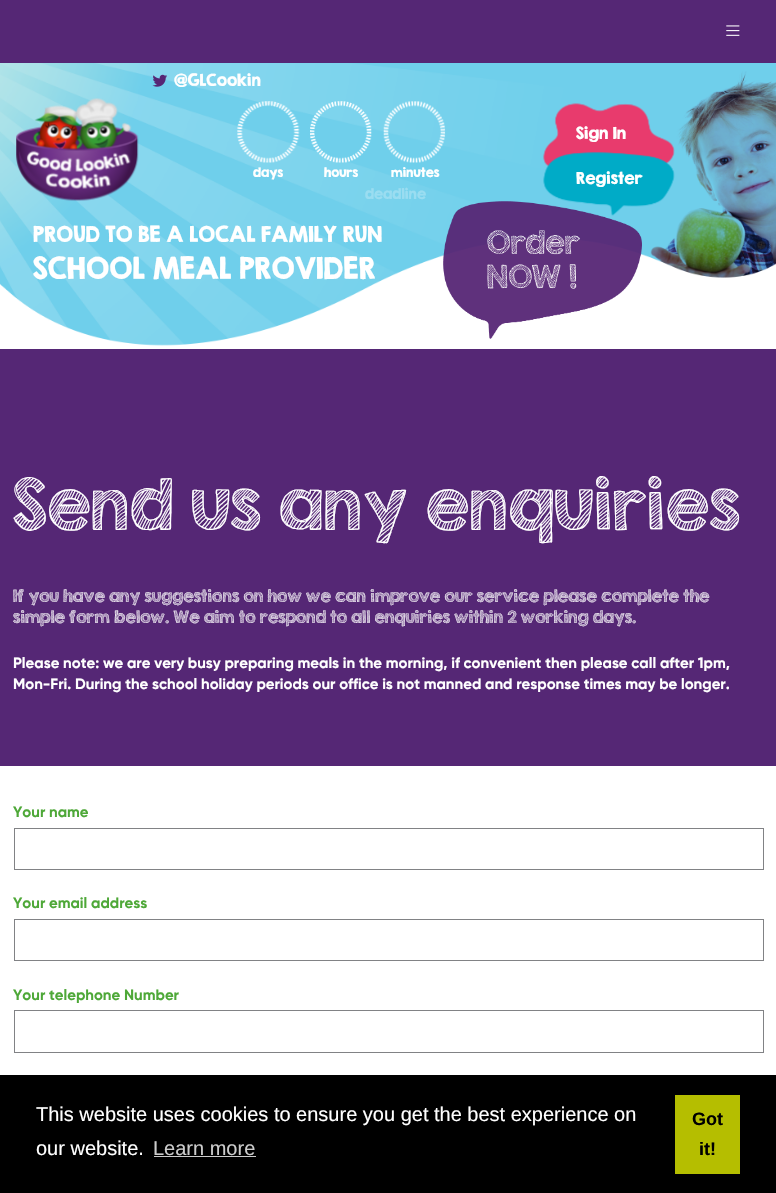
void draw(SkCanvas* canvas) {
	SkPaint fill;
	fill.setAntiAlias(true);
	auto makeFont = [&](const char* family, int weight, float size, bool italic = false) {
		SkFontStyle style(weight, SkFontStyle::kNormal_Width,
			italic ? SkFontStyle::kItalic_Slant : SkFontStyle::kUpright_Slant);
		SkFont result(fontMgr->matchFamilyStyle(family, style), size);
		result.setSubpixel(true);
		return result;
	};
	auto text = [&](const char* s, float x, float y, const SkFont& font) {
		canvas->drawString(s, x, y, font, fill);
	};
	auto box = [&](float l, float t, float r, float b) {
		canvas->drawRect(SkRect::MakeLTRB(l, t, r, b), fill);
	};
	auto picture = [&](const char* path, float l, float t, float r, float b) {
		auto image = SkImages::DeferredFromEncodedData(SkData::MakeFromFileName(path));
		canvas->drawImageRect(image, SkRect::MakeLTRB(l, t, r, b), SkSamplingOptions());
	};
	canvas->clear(0xFFFFFFFF);
	fill.setColor(0xFF552775);
	box(0, 0, 776, 63);
	picture("image0.png", 726, 25, 740, 36);
	picture("image1.png", 0, 63, 776, 346);
	picture("image2.png", 152, 74, 167, 87);
	picture("image3.png", 16, 98, 139, 201);
	picture("image4.png", 237, 101, 300, 163);
	picture("image5.png", 310, 101, 372, 163);
	picture("image6.png", 383, 101, 446, 163);
	picture("image7.png", 543, 103, 675, 167);
	picture("image9.png", 443, 201, 642, 339);
	picture("image8.png", 543, 152, 675, 216);
	box(0, 349, 776, 766);
	fill.setStyle(SkPaint::kStroke_Style);
	fill.setStrokeWidth(1);
	fill.setColor(0xFF818285);
	canvas->drawRect(SkRect::MakeLTRB(14.5f, 828.5f, 763.5f, 869.5f), fill);
	canvas->drawRect(SkRect::MakeLTRB(14.5f, 919.5f, 763.5f, 960.5f), fill);
	canvas->drawRect(SkRect::MakeLTRB(14.5f, 1010.5f, 763.5f, 1052.5f), fill);
	fill.setStyle(SkPaint::kFill_Style);
	fill.setColor(0xFF000000);
	box(0, 1075, 776, 1193);
	fill.setColor(0xFFCCCCCC);
	box(154, 1156, 256, 1157);
	fill.setColor(0xFFB5BE00);
	box(675, 1095, 740, 1174);
	auto font1 = makeFont("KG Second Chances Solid", 400, 14.75f);
	fill.setColor(0xFFFFFFFF);
	text("@GLCookin", 174, 86, font1);
	text("Sign In", 576, 139, font1);
	auto font2 = makeFont("KG Second Chances Solid", 400, 11.5f);
	text("days", 253, 177, font2);
	text("hours", 324, 177, font2);
	text("minutes", 391, 177, font2);
	text("Register", 576, 184, font1);
	auto font3 = makeFont("KG Second Chances Solid", 400, 13);
	fill.setColor(0xFF9ADDF1);
	text("deadline", 365, 199, font3);
	auto font4 = makeFont("KG Second Chances Solid", 400, 19.6f);
	fill.setColor(0xFFFFFFFF);
	text("PROUD TO BE A LOCAL FAMILY RUN", 33, 242, font4);
	auto font5 = makeFont("KG Second Chances Solid", 400, 27);
	text("SCHOOL MEAL PROVIDER", 33, 279, font5);
	auto font6 = makeFont("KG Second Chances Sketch", 400, 62.5f);
	text("Send us any enquiries", 13, 530, font6);
	auto font7 = makeFont("KG Second Chances Sketch", 400, 15);
	text("If you have any suggestions on how we can improve our service please complete the", 13, 602, font7);
	text("simple form below. We aim to respond to all enquiries within 2 working days.", 13, 623, font7);
	auto font8 = makeFont("Gilroy", 700, 15);
	text("Please note: we are very busy preparing meals in the morning, if convenient then please call after 1pm,", 13, 668, font8);
	text("Mon-Fri. During the school holiday periods our office is not manned and response times may be longer.", 13, 689, font8);
	fill.setColor(0xFF4EA838);
	text("Your name", 13, 817, font8);
	text("Your email address", 13, 908, font8);
	text("Your telephone Number", 13, 1000, font8);
	auto font9 = makeFont("Liberation Sans", 400, 20);
	fill.setColor(0xFFFFFFFF);
	text("This website uses cookies to ensure you get the best experience on", 36, 1121, font9);
	text("our website.", 36, 1155, font9);
	fill.setColor(0xFFCCCCCC);
	text("Learn more", 153, 1155, font9);
	auto font10 = makeFont("Liberation Sans", 700, 18);
	fill.setColor(0xFF000000);
	text("Got", 692, 1125, font10);
	text("it!", 699, 1155, font10);
}
